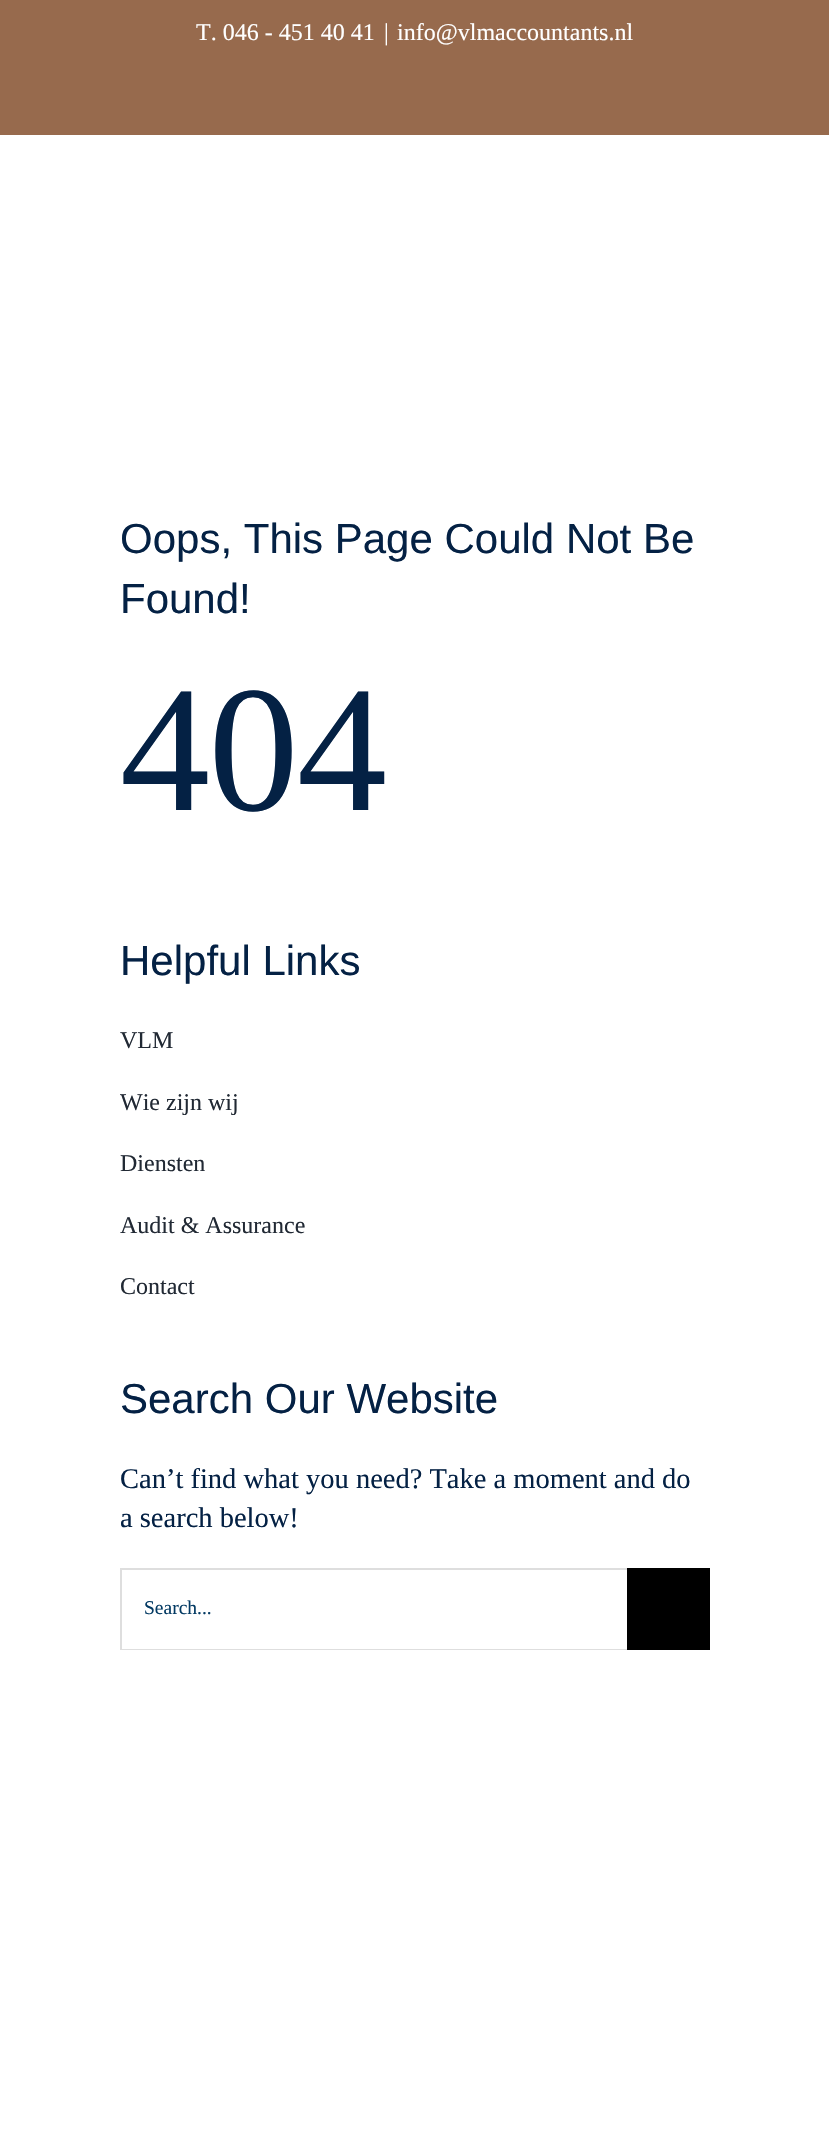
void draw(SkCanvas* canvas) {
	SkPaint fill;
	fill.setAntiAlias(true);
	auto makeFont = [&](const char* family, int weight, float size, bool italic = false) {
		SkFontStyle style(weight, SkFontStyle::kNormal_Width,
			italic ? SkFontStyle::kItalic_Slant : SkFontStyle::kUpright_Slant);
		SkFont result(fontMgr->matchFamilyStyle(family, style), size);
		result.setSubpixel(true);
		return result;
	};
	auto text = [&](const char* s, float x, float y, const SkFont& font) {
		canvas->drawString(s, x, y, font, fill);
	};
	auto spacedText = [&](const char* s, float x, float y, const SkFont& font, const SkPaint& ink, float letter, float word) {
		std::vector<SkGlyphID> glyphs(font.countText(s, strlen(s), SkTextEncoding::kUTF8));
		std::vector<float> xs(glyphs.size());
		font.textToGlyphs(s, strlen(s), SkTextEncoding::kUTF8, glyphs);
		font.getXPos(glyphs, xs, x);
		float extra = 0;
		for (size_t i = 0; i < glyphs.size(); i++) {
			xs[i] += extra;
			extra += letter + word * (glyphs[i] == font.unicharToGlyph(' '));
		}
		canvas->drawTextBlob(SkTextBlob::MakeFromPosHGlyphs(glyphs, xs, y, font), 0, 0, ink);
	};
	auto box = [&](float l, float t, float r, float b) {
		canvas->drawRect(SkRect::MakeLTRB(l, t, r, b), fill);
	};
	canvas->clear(0xFFFFFFFF);
	fill.setColor(0xFF976A4D);
	box(0, 0, 829, 135);
	fill.setColor(0xFFDEDEDE);
	box(120, 1568, 627, 1570);
	box(120, 1649, 627, 1650);
	box(120, 1568, 122, 1650);
	fill.setColor(0xFF000000);
	box(627, 1568, 710, 1650);
	auto font1 = makeFont("Liberation Serif", 400, 24);
	fill.setColor(0xFFFFFFFF);
	text("T. 046 - 451 40 41", 196, 40, font1);
	text("|", 384, 40, font1);
	text("info@vlmaccountants.nl", 397, 40, font1);
	auto font2 = makeFont("Liberation Sans", 400, 42);
	fill.setColor(0xFF042144);
	text("Oops, This Page Could Not Be", 120, 553, font2);
	text("Found!", 120, 613, font2);
	auto font3 = makeFont("Liberation Serif", 400, 180);
	spacedText("404", 120, 810, font3, fill, -1.5f, 0);
	text("Helpful Links", 120, 975, font2);
	fill.setColor(0xFF212934);
	text("VLM", 120, 1048, font1);
	text("Wie zijn wij", 120, 1110, font1);
	text("Diensten", 120, 1171, font1);
	text("Audit & Assurance", 120, 1233, font1);
	text("Contact", 120, 1294, font1);
	fill.setColor(0xFF042144);
	text("Search Our Website", 120, 1413, font2);
	auto font4 = makeFont("Liberation Serif", 400, 28.5f);
	text("Can’t find what you need? Take a moment and do", 120, 1488, font4);
	text("a search below!", 120, 1527, font4);
	auto font5 = makeFont("Liberation Serif", 400, 19.5f);
	fill.setColor(0xFF033A63);
	text("Search...", 144, 1614, font5);
}
